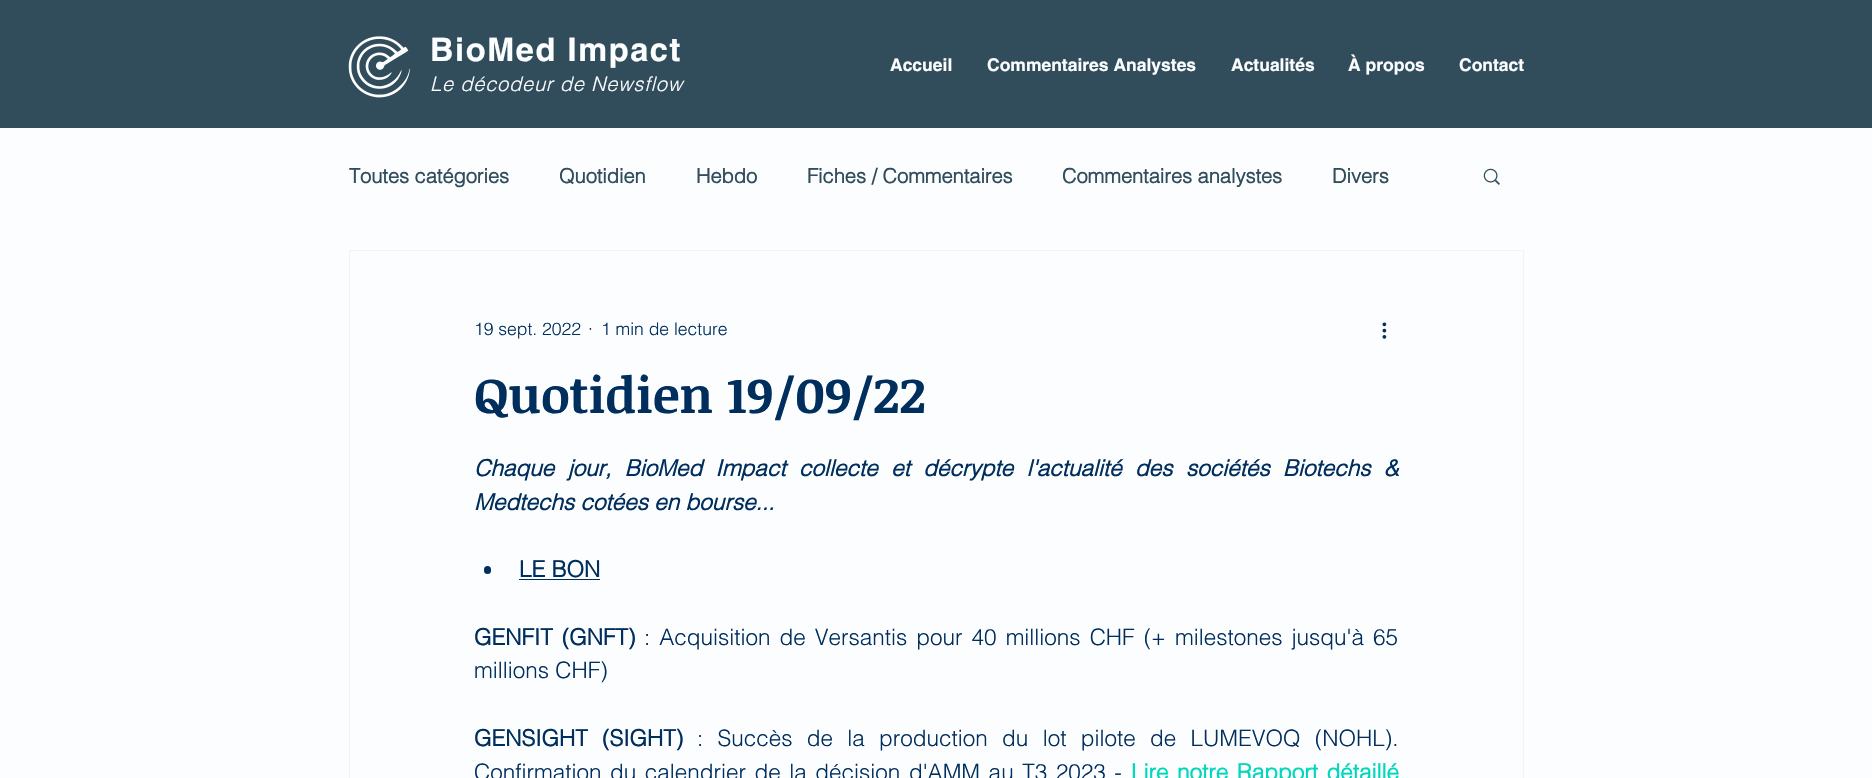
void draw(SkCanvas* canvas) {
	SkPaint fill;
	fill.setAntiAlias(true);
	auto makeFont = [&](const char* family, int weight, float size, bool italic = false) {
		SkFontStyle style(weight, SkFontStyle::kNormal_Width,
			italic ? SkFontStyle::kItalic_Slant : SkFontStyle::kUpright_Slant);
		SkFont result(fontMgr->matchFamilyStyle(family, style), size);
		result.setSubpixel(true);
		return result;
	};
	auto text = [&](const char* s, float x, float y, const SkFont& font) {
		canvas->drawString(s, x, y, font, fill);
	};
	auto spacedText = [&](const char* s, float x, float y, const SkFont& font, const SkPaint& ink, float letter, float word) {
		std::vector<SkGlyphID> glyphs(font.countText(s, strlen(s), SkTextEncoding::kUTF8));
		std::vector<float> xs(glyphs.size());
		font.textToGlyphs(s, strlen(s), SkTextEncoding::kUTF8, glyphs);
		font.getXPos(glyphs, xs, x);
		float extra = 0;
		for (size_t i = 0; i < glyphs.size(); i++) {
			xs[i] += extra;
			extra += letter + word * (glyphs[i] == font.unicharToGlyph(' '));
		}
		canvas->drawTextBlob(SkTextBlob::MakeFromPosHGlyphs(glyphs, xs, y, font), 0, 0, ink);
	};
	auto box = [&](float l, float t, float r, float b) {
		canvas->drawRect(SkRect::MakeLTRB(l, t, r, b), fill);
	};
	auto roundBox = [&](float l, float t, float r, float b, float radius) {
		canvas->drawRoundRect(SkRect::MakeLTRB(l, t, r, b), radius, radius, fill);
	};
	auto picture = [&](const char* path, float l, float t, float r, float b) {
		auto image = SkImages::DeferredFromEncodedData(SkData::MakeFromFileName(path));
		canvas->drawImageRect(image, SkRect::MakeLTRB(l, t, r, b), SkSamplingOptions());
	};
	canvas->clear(0xFFFCFDFF);
	fill.setColor(0xFF314D5B);
	box(0, 0, 1872, 128);
	picture("image0.png", 348, 36, 410, 98);
	picture("image1.png", 1483, 168, 1500, 185);
	fill.setStyle(SkPaint::kStroke_Style);
	fill.setStrokeWidth(1);
	fill.setColor(0xFFF3F3F4);
	canvas->drawRect(SkRect::MakeLTRB(349.5f, 250.5f, 1523.5f, 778.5f), fill);
	picture("image2.png", 1382, 322, 1387, 339);
	fill.setStyle(SkPaint::kFill_Style);
	fill.setColor(0xFF002E5D);
	roundBox(484, 566, 491, 574, 3.5f);
	box(519, 579, 600, 580);
	auto font1 = makeFont("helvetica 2", 700, 32.5f);
	fill.setColor(0xFFFCFDFF);
	spacedText("BioMed Impact", 430, 61, font1, fill, 1.6f, 0);
	auto font2 = makeFont("helvetica 2", 700, 17.5f);
	text("Accueil", 890, 71, font2);
	text("Commentaires Analystes", 987, 71, font2);
	text("Actualités", 1231, 71, font2);
	text("À propos", 1348, 71, font2);
	text("Contact", 1459, 71, font2);
	auto font3 = makeFont("helvetica", 300, 20, true);
	spacedText("Le décodeur de Newsflow", 430, 91, font3, fill, 0.8f, 0);
	auto font4 = makeFont("helvetica", 700, 20);
	fill.setColor(0xFF314D5B);
	text("Toutes catégories", 349, 183, font4);
	text("Quotidien", 559, 183, font4);
	text("Hebdo", 696, 183, font4);
	text("Fiches / Commentaires", 807, 183, font4);
	text("Commentaires analystes", 1062, 183, font4);
	text("Divers", 1332, 183, font4);
	auto font5 = makeFont("helvetica", 300, 17.5f);
	fill.setColor(0xFF002E5D);
	text("19 sept. 2022", 474, 335, font5);
	text("·", 588, 335, font5);
	text("1 min de lecture", 601, 335, font5);
	auto font6 = makeFont("Noticia Text", 700, 50);
	text("Quotidien 19/09/22", 474, 413, font6);
	auto font7 = makeFont("helvetica", 700, 22.5f, true);
	spacedText("Chaque jour, BioMed Impact collecte et décrypte l'actualité des sociétés Biotechs &", 474, 476, font7, fill, 0, 7.1f);
	text("Medtechs cotées en bourse...", 474, 510, font7);
	auto font8 = makeFont("helvetica", 700, 22.5f);
	text("LE BON", 519, 577, font8);
	spacedText("GENFIT (GNFT)", 474, 645, font8, fill, 0, 2.75f);
	auto font9 = makeFont("helvetica", 300, 22.5f);
	spacedText(": Acquisition de Versantis pour 40 millions CHF (+ milestones jusqu'à 65", 644, 645, font9, fill, 0, 2.75f);
	text("millions CHF)", 474, 678, font9);
	spacedText("GENSIGHT (SIGHT)", 474, 746, font8, fill, 0, 8);
	spacedText(": Succès de la production du lot pilote de LUMEVOQ (NOHL).", 697, 746, font9, fill, 0, 8);
	spacedText("Confirmation du calendrier de la décision d'AMM au T3 2023 -", 474, 780, font9, fill, 0, 2.25f);
	fill.setColor(0xFF00D7BB);
	spacedText("Lire notre Rapport détaillé", 1131, 780, font8, fill, 0, 2.25f);
}
